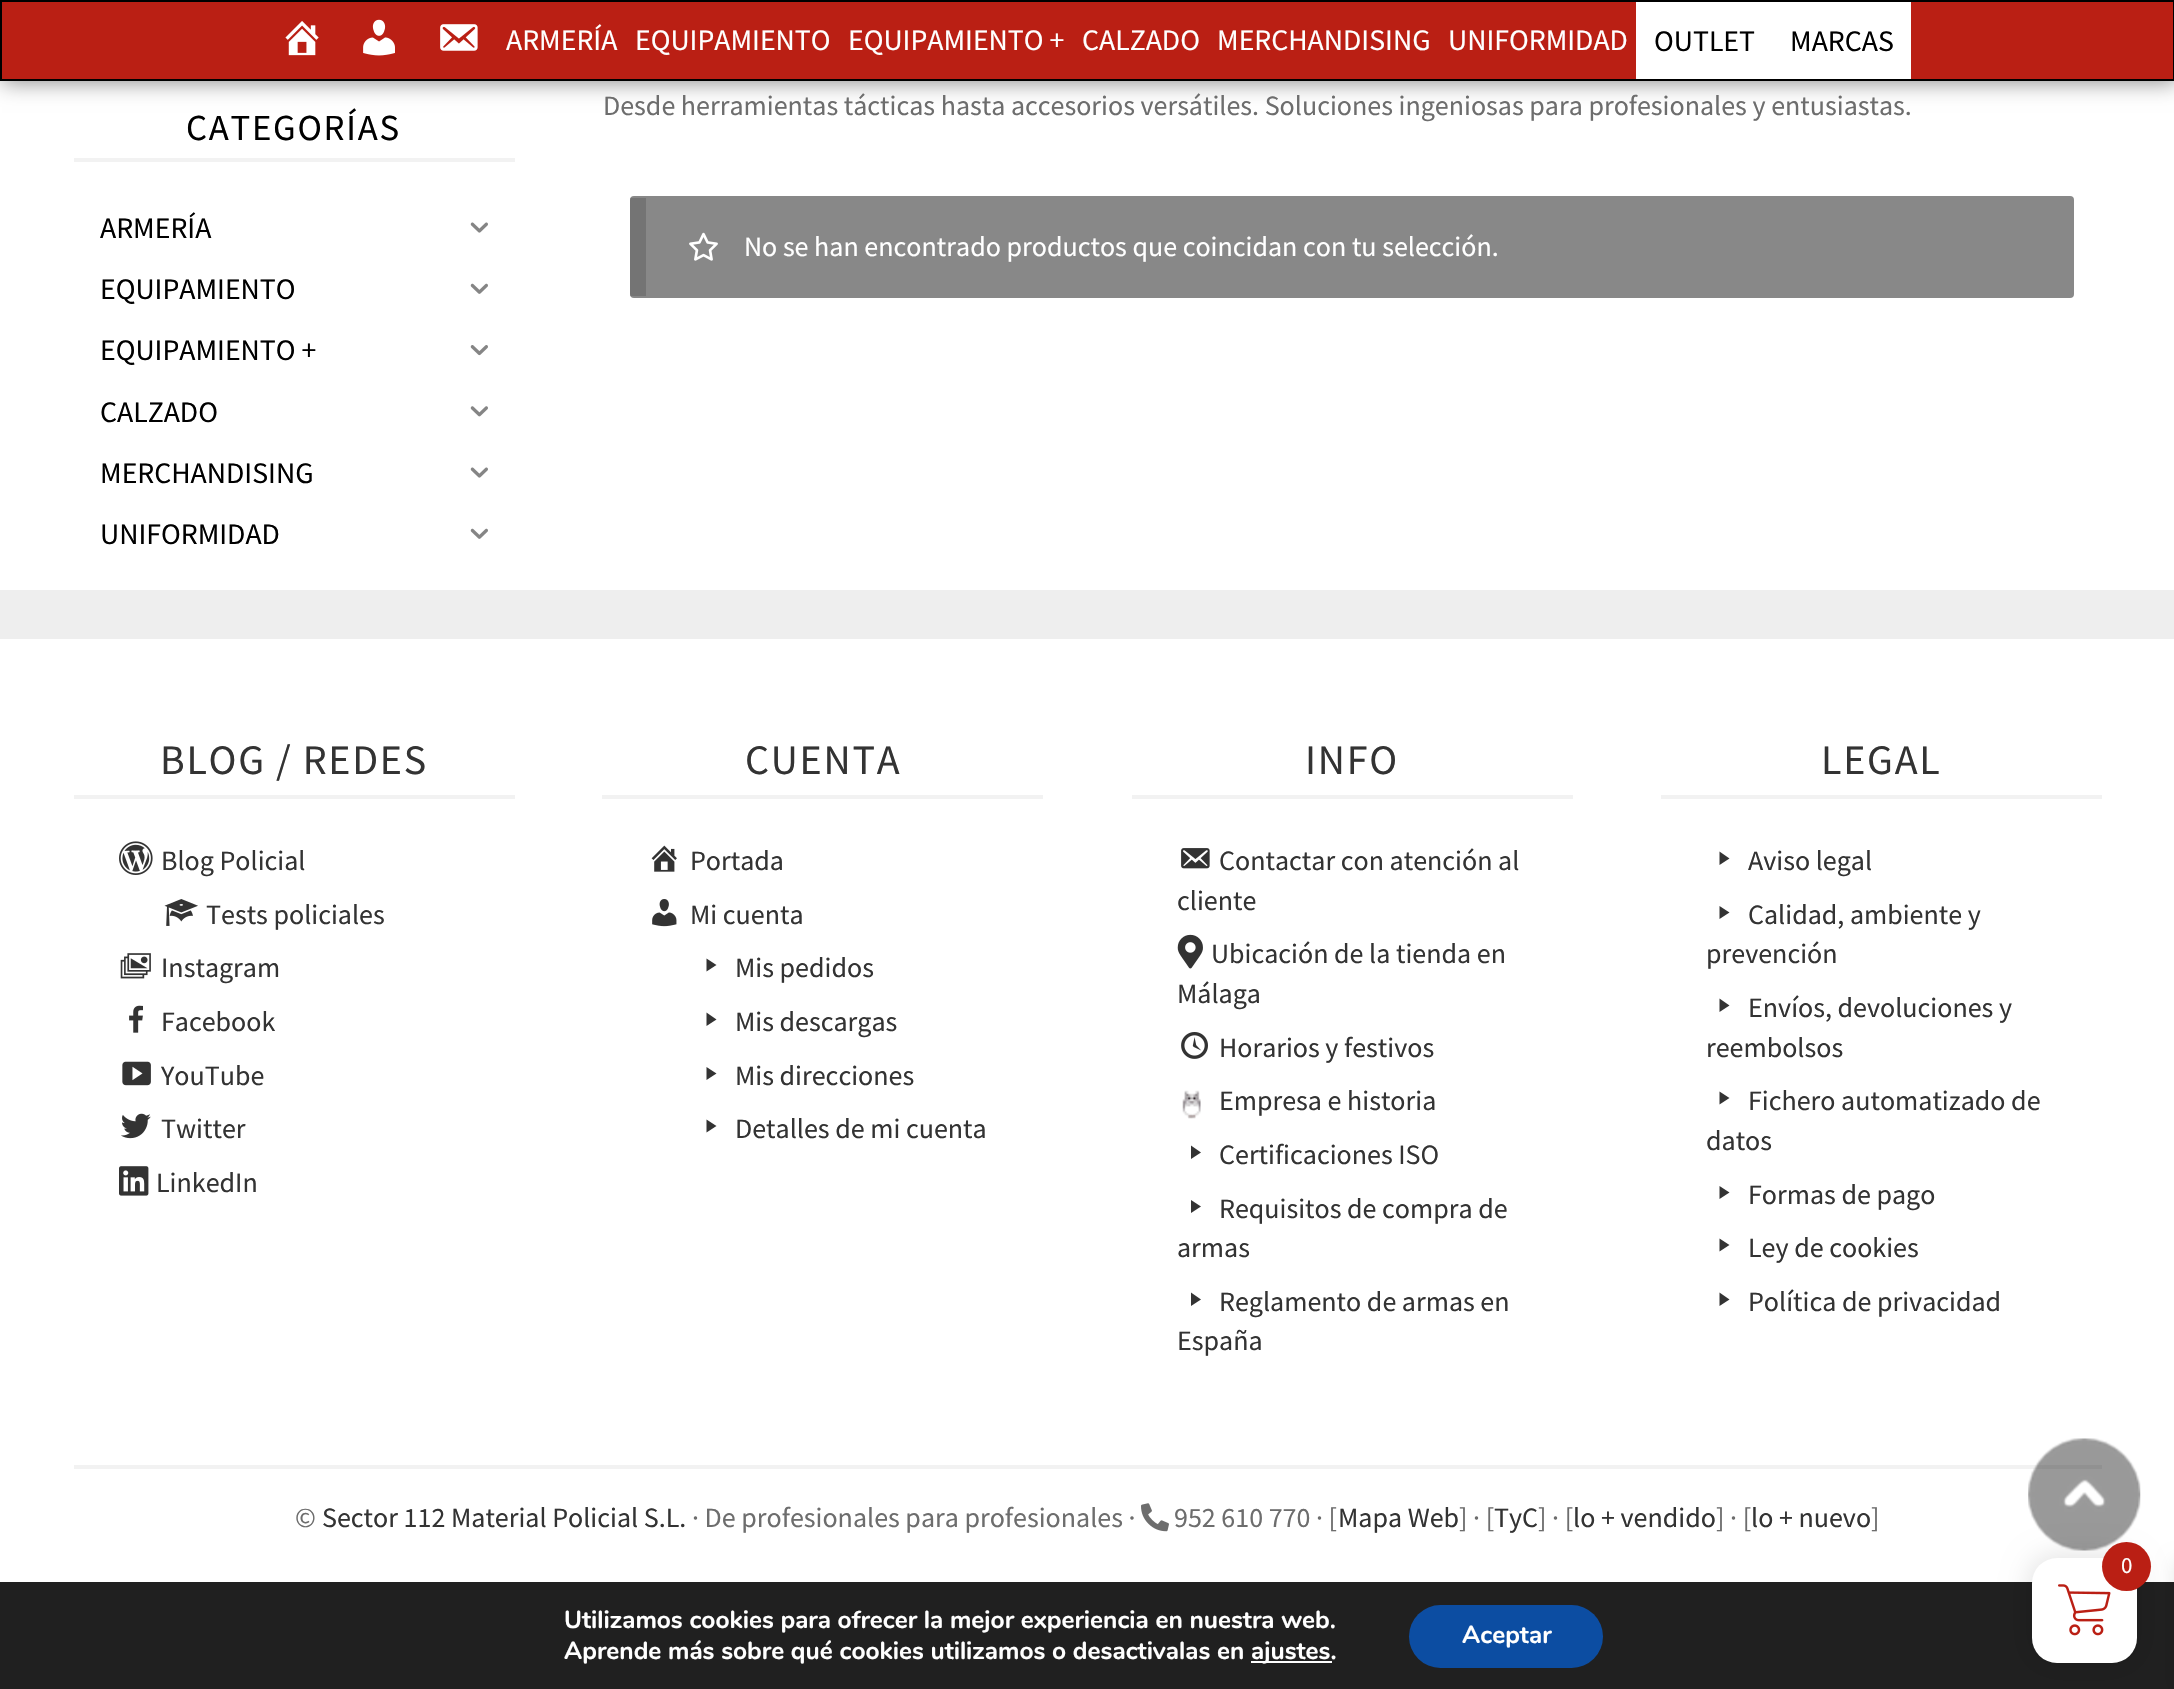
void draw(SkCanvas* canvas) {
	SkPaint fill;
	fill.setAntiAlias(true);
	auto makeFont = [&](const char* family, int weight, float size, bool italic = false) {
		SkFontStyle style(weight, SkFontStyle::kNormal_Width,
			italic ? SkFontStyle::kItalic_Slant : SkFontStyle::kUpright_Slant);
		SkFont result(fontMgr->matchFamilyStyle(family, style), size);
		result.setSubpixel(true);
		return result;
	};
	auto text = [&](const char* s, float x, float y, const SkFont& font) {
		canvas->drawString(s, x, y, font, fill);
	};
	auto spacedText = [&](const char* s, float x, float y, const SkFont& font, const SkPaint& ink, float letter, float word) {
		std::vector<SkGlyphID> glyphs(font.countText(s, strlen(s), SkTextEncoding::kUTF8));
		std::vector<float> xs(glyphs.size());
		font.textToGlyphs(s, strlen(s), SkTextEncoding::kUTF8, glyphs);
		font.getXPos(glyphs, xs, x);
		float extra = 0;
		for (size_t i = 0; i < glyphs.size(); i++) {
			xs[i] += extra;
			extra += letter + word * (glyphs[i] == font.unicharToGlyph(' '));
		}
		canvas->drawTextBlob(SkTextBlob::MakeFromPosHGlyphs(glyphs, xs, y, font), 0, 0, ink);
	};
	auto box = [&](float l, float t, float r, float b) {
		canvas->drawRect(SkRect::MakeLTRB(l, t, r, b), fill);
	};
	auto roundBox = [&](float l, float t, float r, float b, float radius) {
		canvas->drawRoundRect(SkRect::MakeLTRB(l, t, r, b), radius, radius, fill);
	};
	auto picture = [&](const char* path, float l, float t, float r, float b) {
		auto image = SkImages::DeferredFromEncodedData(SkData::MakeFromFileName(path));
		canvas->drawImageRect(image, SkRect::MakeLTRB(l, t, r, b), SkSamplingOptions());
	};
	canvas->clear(0xFFFFFFFF);
	fill.setColor(0xFF888888);
	fill.setMaskFilter(SkMaskFilter::MakeBlur(kNormal_SkBlurStyle, 10.5f));
	canvas->drawRect(SkRect::MakeLTRB(2, 2, 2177, 82), fill);
	fill.setMaskFilter(nullptr);
	fill.setColor(0xFFBA1F14);
	canvas->drawRect(SkRect::MakeLTRB(1, 1, 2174, 80), fill);
	fill.setStyle(SkPaint::kStroke_Style);
	fill.setStrokeWidth(2);
	fill.setColor(0xFF000000);
	canvas->drawRect(SkRect::MakeLTRB(1, 1, 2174, 80), fill);
	picture("image0.png", 285, 21, 319, 56);
	picture("image1.png", 363, 19, 395, 56);
	picture("image2.png", 440, 24, 478, 51);
	fill.setStyle(SkPaint::kFill_Style);
	fill.setColor(0xFFFFFFFF);
	box(1636, 2, 1911, 79);
	fill.setColor(0xFFF2F2F2);
	box(74, 158, 515, 162);
	picture("image3.png", 470, 222, 488, 233);
	picture("image4.png", 470, 283, 488, 294);
	picture("image5.png", 470, 345, 488, 356);
	picture("image6.png", 470, 406, 488, 417);
	picture("image3.png", 470, 467, 488, 478);
	picture("image4.png", 470, 528, 488, 539);
	fill.setColor(0xFF888888);
	roundBox(630, 196, 2074, 298, 4);
	fill.setColor(0x26000000);
	box(630, 198, 646, 296);
	picture("image7.png", 689, 232, 718, 261);
	fill.setColor(0xFFEEEEEE);
	box(0, 590, 2174, 639);
	fill.setColor(0xFFF2F2F2);
	box(74, 1465, 2102, 1469);
	box(74, 795, 515, 799);
	picture("image8.png", 119, 841, 153, 875);
	picture("image9.png", 164, 899, 198, 926);
	picture("image10.png", 120, 953, 151, 979);
	picture("image11.png", 129, 1005, 143, 1033);
	picture("image12.png", 122, 1061, 151, 1086);
	picture("image13.png", 121, 1113, 151, 1139);
	picture("image14.png", 119, 1166, 149, 1196);
	box(602, 795, 1043, 799);
	picture("image15.png", 651, 845, 677, 872);
	picture("image16.png", 652, 899, 677, 927);
	fill.setColor(0xFF333333);
	canvas->drawPath(SkPathBuilder().moveTo(706.5f, 958.5f).lineTo(716.5f, 965).lineTo(706.5f, 971.5f).close().detach(), fill);
	canvas->drawPath(SkPathBuilder().moveTo(706.5f, 1012.5f).lineTo(716.5f, 1019.5f).lineTo(706.5f, 1026).close().detach(), fill);
	canvas->drawPath(SkPathBuilder().moveTo(706.5f, 1067).lineTo(716.5f, 1073.5f).lineTo(706.5f, 1080).close().detach(), fill);
	canvas->drawPath(SkPathBuilder().moveTo(706.5f, 1119.5f).lineTo(716.5f, 1126).lineTo(706.5f, 1132.5f).close().detach(), fill);
	fill.setColor(0xFFF2F2F2);
	box(1132, 795, 1573, 799);
	picture("image17.png", 1181, 848, 1210, 869);
	picture("image18.png", 1177, 934, 1203, 969);
	picture("image19.png", 1181, 1032, 1208, 1059);
	picture("image20.png", 1182, 1090, 1201, 1119);
	fill.setColor(0xFF333333);
	canvas->drawPath(SkPathBuilder().moveTo(1191, 1145.5f).lineTo(1201, 1152.5f).lineTo(1191, 1159).close().detach(), fill);
	canvas->drawPath(SkPathBuilder().moveTo(1191, 1200).lineTo(1201, 1206.5f).lineTo(1191, 1213).close().detach(), fill);
	canvas->drawPath(SkPathBuilder().moveTo(1191, 1292.5f).lineTo(1201, 1299.5f).lineTo(1191, 1306).close().detach(), fill);
	fill.setColor(0xFFF2F2F2);
	box(1661, 795, 2102, 799);
	fill.setColor(0xFF333333);
	canvas->drawPath(SkPathBuilder().moveTo(1719.5f, 851.5f).lineTo(1729.5f, 858.5f).lineTo(1719.5f, 865).close().detach(), fill);
	canvas->drawPath(SkPathBuilder().moveTo(1719.5f, 906).lineTo(1729.5f, 912.5f).lineTo(1719.5f, 919).close().detach(), fill);
	canvas->drawPath(SkPathBuilder().moveTo(1719.5f, 998.5f).lineTo(1729.5f, 1005.5f).lineTo(1719.5f, 1012).close().detach(), fill);
	canvas->drawPath(SkPathBuilder().moveTo(1719.5f, 1091.5f).lineTo(1729.5f, 1098).lineTo(1719.5f, 1104.5f).close().detach(), fill);
	canvas->drawPath(SkPathBuilder().moveTo(1719.5f, 1186).lineTo(1729.5f, 1192.5f).lineTo(1719.5f, 1199).close().detach(), fill);
	canvas->drawPath(SkPathBuilder().moveTo(1719.5f, 1238.5f).lineTo(1729.5f, 1245).lineTo(1719.5f, 1251.5f).close().detach(), fill);
	canvas->drawPath(SkPathBuilder().moveTo(1719.5f, 1292.5f).lineTo(1729.5f, 1299.5f).lineTo(1719.5f, 1306).close().detach(), fill);
	picture("image21.png", 1141, 1503, 1169, 1532);
	picture("image22.png", 2028, 1438, 2141, 1551);
	fill.setColor(0xFF202020);
	box(0, 1582, 2174, 1689);
	fill.setColor(0x1A000000);
	fill.setMaskFilter(SkMaskFilter::MakeBlur(kNormal_SkBlurStyle, 13));
	canvas->drawRoundRect(SkRect::MakeLTRB(2028, 1554, 2140, 1666), 28, 28, fill);
	fill.setMaskFilter(nullptr);
	fill.setColor(0xFFFFFFFF);
	roundBox(2032, 1558, 2137, 1663, 25);
	picture("image23.png", 2058, 1584, 2111, 1636);
	fill.setColor(0x1A000000);
	fill.setMaskFilter(SkMaskFilter::MakeBlur(kNormal_SkBlurStyle, 9));
	canvas->drawRect(SkRect::MakeLTRB(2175, 1561, 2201, 1689), fill);
	fill.setMaskFilter(nullptr);
	fill.setColor(0xFFBA1F14);
	canvas->drawCircle(2126.5f, 1566.5f, 24.5f, fill);
	fill.setColor(0xFFFFFFFF);
	box(1251, 1661, 1332, 1663);
	fill.setColor(0xFF0C4DA2);
	roundBox(1409, 1605, 1603, 1668, 31.5f);
	auto font1 = makeFont("Source Sans Pro", 400, 29.75f);
	fill.setColor(0xFFFFFFFF);
	text("ARMERÍA", 506, 50, font1);
	text("EQUIPAMIENTO", 635, 50, font1);
	text("EQUIPAMIENTO +", 848, 50, font1);
	text("CALZADO", 1082, 50, font1);
	text("MERCHANDISING", 1217, 50, font1);
	text("UNIFORMIDAD", 1448, 50, font1);
	fill.setColor(0xFF000000);
	text("OUTLET", 1654, 51, font1);
	text("MARCAS", 1790, 51, font1);
	auto font2 = makeFont("Source Sans Pro", 400, 36.75f);
	spacedText("CATEGORÍAS", 186, 140, font2, fill, 1.75f, 0);
	text("ARMERÍA", 100, 238, font1);
	text("EQUIPAMIENTO", 100, 299, font1);
	text("EQUIPAMIENTO +", 100, 360, font1);
	text("CALZADO", 100, 422, font1);
	text("MERCHANDISING", 100, 483, font1);
	text("UNIFORMIDAD", 100, 544, font1);
	auto font3 = makeFont("Source Sans Pro", 400, 28);
	fill.setColor(0xFF6D6D6D);
	text("Desde herramientas tácticas hasta accesorios versátiles. Soluciones ingeniosas para profesionales y entusiastas.", 603, 115, font3);
	fill.setColor(0xFFFFFFFF);
	text("No se han encontrado productos que coincidan con tu selección.", 744, 256, font3);
	auto font4 = makeFont("Source Sans Pro", 400, 42);
	fill.setColor(0xFF333333);
	spacedText("BLOG / REDES", 160, 774, font4, fill, 1.75f, 0);
	text("Blog Policial", 161, 870, font3);
	text("Tests policiales", 206, 924, font3);
	text("Instagram", 161, 977, font3);
	text("Facebook", 161, 1031, font3);
	text("YouTube", 161, 1085, font3);
	text("Twitter", 161, 1138, font3);
	text("LinkedIn", 156, 1192, font3);
	spacedText("CUENTA", 745, 774, font4, fill, 1.75f, 0);
	text("Portada", 690, 870, font3);
	text("Mi cuenta", 690, 924, font3);
	text("Mis pedidos", 735, 977, font3);
	text("Mis descargas", 735, 1031, font3);
	text("Mis direcciones", 735, 1085, font3);
	text("Detalles de mi cuenta", 735, 1138, font3);
	spacedText("INFO", 1305, 774, font4, fill, 1.75f, 0);
	text("Contactar con atención al", 1219, 870, font3);
	text("cliente", 1177, 910, font3);
	text("Ubicación de la tienda en", 1211, 963, font3);
	text("Málaga", 1177, 1003, font3);
	text("Horarios y festivos", 1219, 1057, font3);
	text("Empresa e historia", 1219, 1110, font3);
	text("Certificaciones ISO", 1219, 1164, font3);
	text("Requisitos de compra de", 1219, 1218, font3);
	text("armas", 1177, 1257, font3);
	text("Reglamento de armas en", 1219, 1311, font3);
	text("España", 1177, 1350, font3);
	spacedText("LEGAL", 1821, 774, font4, fill, 1.75f, 0);
	text("Aviso legal", 1748, 870, font3);
	text("Calidad, ambiente y", 1748, 924, font3);
	text("prevención", 1706, 963, font3);
	text("Envíos, devoluciones y", 1748, 1017, font3);
	text("reembolsos", 1706, 1057, font3);
	text("Fichero automatizado de", 1748, 1110, font3);
	text("datos", 1706, 1150, font3);
	text("Formas de pago", 1748, 1204, font3);
	text("Ley de cookies", 1748, 1257, font3);
	text("Política de privacidad", 1748, 1311, font3);
	fill.setColor(0xFF6D6D6D);
	text("©", 295, 1527, font3);
	fill.setColor(0xFF333333);
	text("Sector 112 Material Policial S.L.", 322, 1527, font3);
	fill.setColor(0xFF6D6D6D);
	text("· De profesionales para profesionales ·", 692, 1527, font3);
	text("952 610 770 · [", 1174, 1527, font3);
	fill.setColor(0xFF333333);
	text("Mapa Web", 1338, 1527, font3);
	fill.setColor(0xFF6D6D6D);
	text("] · [", 1459, 1527, font3);
	fill.setColor(0xFF333333);
	text("TyC", 1494, 1527, font3);
	fill.setColor(0xFF6D6D6D);
	text("] · [", 1538, 1527, font3);
	fill.setColor(0xFF333333);
	text("lo + vendido", 1573, 1527, font3);
	fill.setColor(0xFF6D6D6D);
	text("] · [", 1716, 1527, font3);
	fill.setColor(0xFF333333);
	text("lo + nuevo", 1751, 1527, font3);
	fill.setColor(0xFF6D6D6D);
	text("]", 1871, 1527, font3);
	auto font5 = makeFont("Source Sans Pro", 400, 23);
	fill.setColor(0xFFFFFFFF);
	text("0", 2121, 1573, font5);
	auto font6 = makeFont("Nunito", 700, 24.5f);
	text("Utilizamos cookies para ofrecer la mejor experiencia en nuestra web.", 564, 1628, font6);
	text("Aprende más sobre qué cookies utilizamos o desactivalas en", 564, 1659, font6);
	text("ajustes.", 1251, 1659, font6);
	text("Aceptar", 1462, 1643, font6);
}
